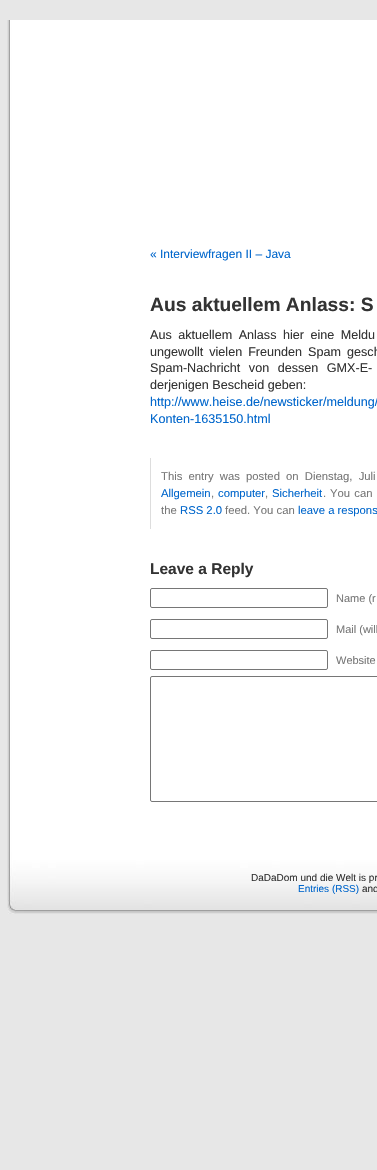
void draw(SkCanvas* canvas) {
	SkPaint fill;
	fill.setAntiAlias(true);
	auto makeFont = [&](const char* family, int weight, float size, bool italic = false) {
		SkFontStyle style(weight, SkFontStyle::kNormal_Width,
			italic ? SkFontStyle::kItalic_Slant : SkFontStyle::kUpright_Slant);
		SkFont result(fontMgr->matchFamilyStyle(family, style), size);
		result.setSubpixel(true);
		return result;
	};
	auto text = [&](const char* s, float x, float y, const SkFont& font) {
		canvas->drawString(s, x, y, font, fill);
	};
	auto spacedText = [&](const char* s, float x, float y, const SkFont& font, const SkPaint& ink, float letter, float word) {
		std::vector<SkGlyphID> glyphs(font.countText(s, strlen(s), SkTextEncoding::kUTF8));
		std::vector<float> xs(glyphs.size());
		font.textToGlyphs(s, strlen(s), SkTextEncoding::kUTF8, glyphs);
		font.getXPos(glyphs, xs, x);
		float extra = 0;
		for (size_t i = 0; i < glyphs.size(); i++) {
			xs[i] += extra;
			extra += letter + word * (glyphs[i] == font.unicharToGlyph(' '));
		}
		canvas->drawTextBlob(SkTextBlob::MakeFromPosHGlyphs(glyphs, xs, y, font), 0, 0, ink);
	};
	auto box = [&](float l, float t, float r, float b) {
		canvas->drawRect(SkRect::MakeLTRB(l, t, r, b), fill);
	};
	auto picture = [&](const char* path, float l, float t, float r, float b) {
		auto image = SkImages::DeferredFromEncodedData(SkData::MakeFromFileName(path));
		canvas->drawImageRect(image, SkRect::MakeLTRB(l, t, r, b), SkSamplingOptions());
	};
	canvas->clear(0xFFE7E7E7);
	picture("image0.png", 7, 20, 377, 852);
	fill.setColor(0xFFDDDDDD);
	box(150, 458, 151, 529);
	fill.setStyle(SkPaint::kStroke_Style);
	fill.setStrokeWidth(1);
	fill.setColor(0xFF767676);
	canvas->drawRoundRect(SkRect::MakeLTRB(150.5f, 588.5f, 327.5f, 607.5f), 1.5f, 1.5f, fill);
	canvas->drawRoundRect(SkRect::MakeLTRB(150.5f, 619.5f, 327.5f, 638.5f), 1.5f, 1.5f, fill);
	canvas->drawRoundRect(SkRect::MakeLTRB(150.5f, 650.5f, 327.5f, 669.5f), 1.5f, 1.5f, fill);
	canvas->drawRoundRect(SkRect::MakeLTRB(150.5f, 676.5f, 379.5f, 801.5f), 1.5f, 1.5f, fill);
	picture("image1.png", 7, 852, 377, 914);
	auto font1 = makeFont("Liberation Sans", 400, 12);
	fill.setStyle(SkPaint::kFill_Style);
	fill.setColor(0xFF0066CC);
	text("« Interviewfragen II – Java", 150, 258, font1);
	auto font2 = makeFont("Liberation Sans", 700, 19.25f);
	fill.setColor(0xFF333333);
	text("Aus aktuellem Anlass: S", 150, 311, font2);
	auto font3 = makeFont("Liberation Sans", 400, 12.6f);
	spacedText("Aus aktuellem Anlass hier eine Meldu", 150, 339, font3, fill, 0, 3);
	spacedText("ungewollt vielen Freunden Spam gesch", 150, 356, font3, fill, 0, 2.5f);
	spacedText("Spam-Nachricht von dessen GMX-E-", 150, 372, font3, fill, 0, 5);
	text("derjenigen Bescheid geben:", 150, 389, font3);
	fill.setColor(0xFF0066CC);
	text("http://www.heise.de/newsticker/meldung/", 150, 406, font3);
	text("Konten-1635150.html", 150, 423, font3);
	auto font4 = makeFont("Liberation Sans", 400, 11.3f);
	fill.setColor(0xFF777777);
	spacedText("This entry was posted on Dienstag, Juli", 161, 480, font4, fill, 0, 3);
	fill.setColor(0xFF0066CC);
	text("Allgemein", 161, 497, font4);
	fill.setColor(0xFF777777);
	text(",", 211, 497, font4);
	fill.setColor(0xFF0066CC);
	text("computer", 218, 497, font4);
	fill.setColor(0xFF777777);
	text(",", 265, 497, font4);
	fill.setColor(0xFF0066CC);
	text("Sicherheit", 272, 497, font4);
	fill.setColor(0xFF777777);
	text(".", 323, 497, font4);
	spacedText("You can", 330, 497, font4, fill, 0, 1);
	text("the", 161, 514, font4);
	fill.setColor(0xFF0066CC);
	text("RSS 2.0", 180, 514, font4);
	fill.setColor(0xFF777777);
	text("feed. You can", 225, 514, font4);
	fill.setColor(0xFF0066CC);
	text("leave a respons", 298, 514, font4);
	auto font5 = makeFont("Liberation Sans", 700, 15.5f);
	fill.setColor(0xFF333333);
	text("Leave a Reply", 150, 574, font5);
	auto font6 = makeFont("Liberation Sans", 400, 11);
	fill.setColor(0xFF777777);
	text("Name (r", 336, 602, font6);
	text("Mail (will", 336, 633, font6);
	text("Website", 336, 664, font6);
	auto font7 = makeFont("Liberation Sans", 400, 10);
	fill.setColor(0xFF333333);
	text("DaDaDom und die Welt is pr", 251, 881, font7);
	fill.setColor(0xFF0066CC);
	text("Entries (RSS)", 298, 892, font7);
	fill.setColor(0xFF333333);
	text("and", 362, 892, font7);
}
